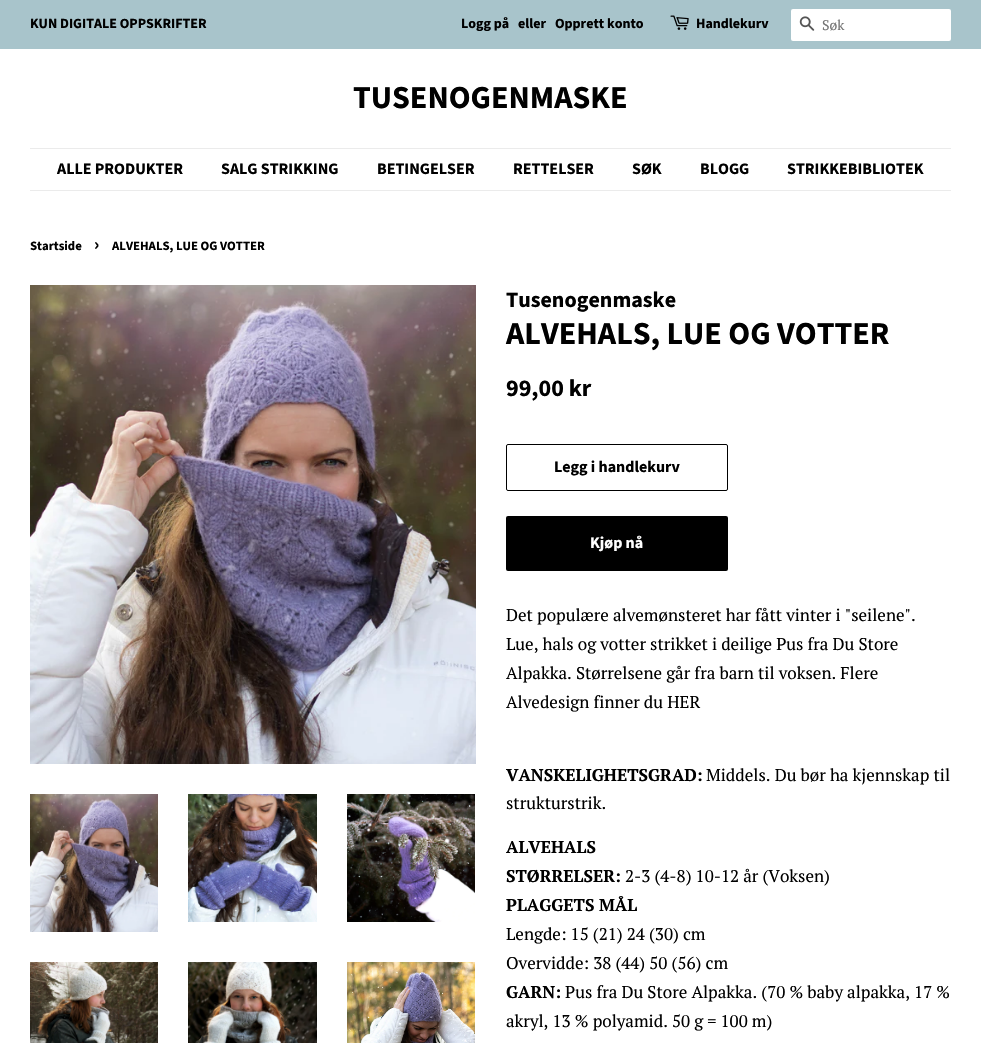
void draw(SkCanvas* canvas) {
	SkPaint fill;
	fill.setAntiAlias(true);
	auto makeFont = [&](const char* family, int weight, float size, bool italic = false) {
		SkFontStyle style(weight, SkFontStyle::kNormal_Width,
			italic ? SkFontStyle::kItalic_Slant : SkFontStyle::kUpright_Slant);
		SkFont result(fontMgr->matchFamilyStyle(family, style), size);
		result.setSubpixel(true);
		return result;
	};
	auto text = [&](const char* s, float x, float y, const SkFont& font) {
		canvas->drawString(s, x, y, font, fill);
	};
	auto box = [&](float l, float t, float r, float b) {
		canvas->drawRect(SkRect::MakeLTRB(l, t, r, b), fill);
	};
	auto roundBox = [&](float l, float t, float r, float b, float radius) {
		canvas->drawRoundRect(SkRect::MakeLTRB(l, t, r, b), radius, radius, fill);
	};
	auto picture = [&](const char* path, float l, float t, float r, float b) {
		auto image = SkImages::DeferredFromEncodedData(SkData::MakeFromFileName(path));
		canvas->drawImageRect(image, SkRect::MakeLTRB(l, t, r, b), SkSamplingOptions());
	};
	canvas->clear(0xFFFFFFFF);
	fill.setColor(0xFFA8C4CB);
	box(0, 0, 981, 49);
	picture("image0.png", 670, 15, 689, 30);
	fill.setColor(0xFFFFFFFF);
	roundBox(791, 9, 951, 41, 2);
	picture("image1.png", 799, 16, 815, 31);
	fill.setColor(0xFFEBEBEB);
	box(30, 148, 951, 149);
	box(30, 190, 951, 191);
	picture("image2.png", 30, 285, 476, 764);
	picture("image3.png", 30, 794, 158, 932);
	picture("image4.png", 188, 794, 317, 922);
	picture("image5.png", 347, 794, 475, 922);
	picture("image6.png", 30, 962, 158, 1043);
	picture("image7.png", 188, 962, 317, 1043);
	picture("image8.png", 347, 962, 475, 1043);
	fill.setStyle(SkPaint::kStroke_Style);
	fill.setStrokeWidth(1);
	fill.setColor(0xFF000000);
	canvas->drawRoundRect(SkRect::MakeLTRB(506.5f, 444.5f, 727.5f, 490.5f), 1.5f, 1.5f, fill);
	fill.setStyle(SkPaint::kFill_Style);
	roundBox(506, 516, 728, 571, 2);
	auto font1 = makeFont("Source Sans Pro", 700, 14);
	text("KUN DIGITALE OPPSKRIFTER", 30, 28, font1);
	text("Logg på", 461, 28, font1);
	text("eller", 518, 28, font1);
	text("Opprett konto", 555, 28, font1);
	text("Handlekurv", 696, 28, font1);
	auto font2 = makeFont("PT Serif", 400, 14);
	fill.setColor(0xFF757575);
	text("Søk", 822, 30, font2);
	auto font3 = makeFont("Source Sans Pro", 700, 32);
	fill.setColor(0xFF000000);
	text("TUSENOGENMASKE", 353, 108, font3);
	auto font4 = makeFont("Source Sans Pro", 700, 16);
	text("ALLE PRODUKTER", 57, 174, font4);
	text("SALG STRIKKING", 221, 174, font4);
	text("BETINGELSER", 377, 174, font4);
	text("RETTELSER", 513, 174, font4);
	text("SØK", 632, 174, font4);
	text("BLOGG", 700, 174, font4);
	text("STRIKKEBIBLIOTEK", 787, 174, font4);
	auto font5 = makeFont("Source Sans Pro", 700, 12.75f);
	text("Startside", 30, 250, font5);
	auto font6 = makeFont("Source Sans Pro", 700, 18);
	text("›", 94, 250, font6);
	text("ALVEHALS, LUE OG VOTTER", 112, 250, font5);
	auto font7 = makeFont("Source Sans Pro", 700, 22);
	text("Tusenogenmaske", 506, 307, font7);
	text("ALVEHALS, LUE OG VOTTER", 506, 344, font3);
	auto font8 = makeFont("Source Sans Pro", 700, 24);
	text("99,00 kr", 506, 396, font8);
	text("Legg i handlekurv", 554, 472, font4);
	fill.setColor(0xFFFFFFFF);
	text("Kjøp nå", 590, 548, font4);
	auto font9 = makeFont("PT Serif", 400, 17);
	fill.setColor(0xFF000000);
	text("Det populære alvemønsteret har fått vinter i \"seilene\".", 506, 621, font9);
	text("Lue, hals og votter strikket i deilige Pus fra Du Store", 506, 650, font9);
	text("Alpakka. Størrelsene går fra barn til voksen. Flere", 506, 679, font9);
	text("Alvedesign finner du HER", 506, 708, font9);
	auto font10 = makeFont("PT Serif", 700, 17);
	text("VANSKELIGHETSGRAD:", 506, 781, font10);
	text("Middels. Du bør ha kjennskap til", 706, 781, font9);
	text("strukturstrik.", 506, 809, font9);
	text("ALVEHALS", 506, 853, font10);
	text("STØRRELSER:", 506, 882, font10);
	text("2-3 (4-8) 10-12 år (Voksen)", 625, 882, font9);
	text("PLAGGETS MÅL", 506, 911, font10);
	text("Lengde: 15 (21) 24 (30) cm", 506, 940, font9);
	text("Overvidde: 38 (44) 50 (56) cm", 506, 969, font9);
	text("GARN:", 506, 998, font10);
	text("Pus fra Du Store Alpakka. (70 % baby alpakka, 17 %", 565, 998, font9);
	text("akryl, 13 % polyamid. 50 g = 100 m)", 506, 1027, font9);
}
